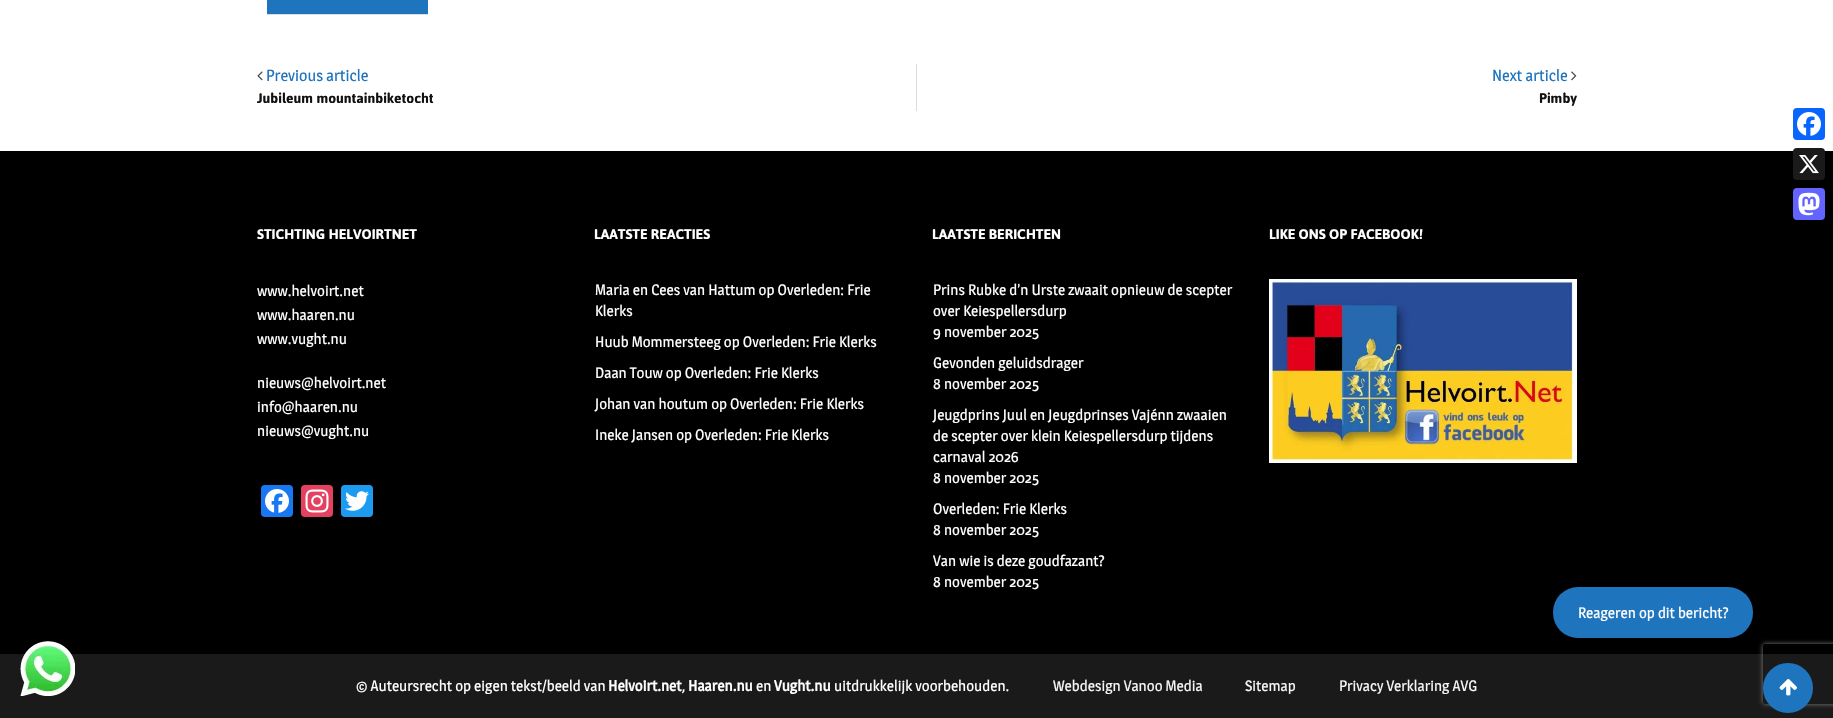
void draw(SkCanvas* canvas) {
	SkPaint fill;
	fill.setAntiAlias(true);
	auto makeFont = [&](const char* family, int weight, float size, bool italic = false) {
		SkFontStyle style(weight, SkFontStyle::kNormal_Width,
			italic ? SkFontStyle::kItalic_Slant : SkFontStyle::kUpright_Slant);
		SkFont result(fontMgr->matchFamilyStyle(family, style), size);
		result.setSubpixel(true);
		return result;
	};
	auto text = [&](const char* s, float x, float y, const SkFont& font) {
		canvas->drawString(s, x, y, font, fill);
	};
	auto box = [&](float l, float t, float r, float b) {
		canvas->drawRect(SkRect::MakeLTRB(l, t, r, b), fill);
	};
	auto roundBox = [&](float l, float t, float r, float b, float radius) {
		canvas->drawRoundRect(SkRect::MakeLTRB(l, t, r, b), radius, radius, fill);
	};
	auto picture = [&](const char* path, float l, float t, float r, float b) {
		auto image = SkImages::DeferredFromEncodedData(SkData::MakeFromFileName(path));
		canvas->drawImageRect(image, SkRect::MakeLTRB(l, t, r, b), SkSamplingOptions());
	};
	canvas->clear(0xFFFFFFFF);
	fill.setColor(0xFFDEDEDE);
	box(267, 14, 428, 15);
	fill.setColor(0xFF1F74BE);
	box(267, 0, 428, 14);
	picture("image0.png", 257, 71, 263, 81);
	fill.setColor(0xFFDCDCDC);
	box(916, 64, 917, 111);
	picture("image1.png", 1571, 71, 1577, 81);
	fill.setColor(0xFF000000);
	box(0, 151, 1833, 654);
	fill.setColor(0xFF1877F2);
	roundBox(261, 485, 293, 517, 4);
	picture("image2.png", 265, 489, 289, 513);
	fill.setColor(0xFFE4405F);
	roundBox(301, 485, 333, 517, 4);
	picture("image3.png", 305, 489, 329, 513);
	fill.setColor(0xFF1D9BF0);
	roundBox(341, 485, 373, 517, 4);
	picture("image4.png", 345, 491, 369, 511);
	picture("image5.png", 1269, 279, 1577, 463);
	fill.setColor(0xFF1F74BE);
	roundBox(1553, 587, 1753, 638, 25);
	fill.setColor(0xFF1A1A1A);
	box(0, 654, 1833, 718);
	picture("image6.png", 20, 641, 75, 696);
	fill.setColor(0xFF0866FF);
	roundBox(1793, 108, 1825, 140, 4);
	picture("image7.png", 1797, 112, 1821, 136);
	fill.setColor(0xFF1A1A1A);
	roundBox(1793, 148, 1825, 180, 4);
	picture("image8.png", 1799, 155, 1819, 174);
	fill.setColor(0xFF6364FF);
	roundBox(1793, 188, 1825, 220, 4);
	picture("image9.png", 1798, 192, 1820, 216);
	canvas->save();
	canvas->clipPath(SkPathBuilder(SkPathFillType::kEvenOdd).moveTo(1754, 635).lineTo(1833, 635).lineTo(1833, 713).lineTo(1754, 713).close().moveTo(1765, 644).lineTo(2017, 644).cubicTo(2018, 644, 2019, 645, 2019, 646).lineTo(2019, 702).cubicTo(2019, 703, 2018, 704, 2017, 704).lineTo(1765, 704).cubicTo(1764, 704, 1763, 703, 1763, 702).lineTo(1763, 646).cubicTo(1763, 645, 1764, 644, 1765, 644).close().detach(), true);
	fill.setColor(0xFF808080);
	fill.setMaskFilter(SkMaskFilter::MakeBlur(kNormal_SkBlurStyle, 2.5f));
	canvas->drawRoundRect(SkRect::MakeLTRB(1763, 644, 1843, 704), 2, 2, fill);
	fill.setMaskFilter(nullptr);
	canvas->restore();
	fill.setColor(0xFF1F74BE);
	canvas->drawCircle(1788, 688, 24, fill);
	fill.setStyle(SkPaint::kStroke_Style);
	fill.setStrokeWidth(2);
	canvas->drawCircle(1788, 688, 24, fill);
	picture("image10.png", 1779, 679, 1797, 696);
	auto font1 = makeFont("Magra", 400, 16);
	fill.setStyle(SkPaint::kFill_Style);
	text("Previous article", 266, 81, font1);
	auto font2 = makeFont("Jaldi", 700, 16);
	fill.setColor(0xFF111111);
	text("Jubileum mountainbiketocht", 257, 103, font2);
	fill.setColor(0xFF1F74BE);
	text("Next article", 1492, 81, font1);
	fill.setColor(0xFF111111);
	text("Pimby", 1539, 103, font2);
	fill.setColor(0xFFFFFFFF);
	text("STICHTING HELVOIRTNET", 257, 239, font2);
	auto font3 = makeFont("Magra", 400, 15);
	text("www.helvoirt.net", 257, 296, font3);
	text("www.haaren.nu", 257, 320, font3);
	text("www.vught.nu", 257, 344, font3);
	text("nieuws@helvoirt.net", 257, 388, font3);
	text("info@haaren.nu", 257, 412, font3);
	text("nieuws@vught.nu", 257, 436, font3);
	text("LAATSTE REACTIES", 594, 239, font2);
	text("Maria en Cees van Hattum op Overleden: Frie", 595, 295, font3);
	text("Klerks", 595, 316, font3);
	text("Huub Mommersteeg op Overleden: Frie Klerks", 595, 347, font3);
	text("Daan Touw op Overleden: Frie Klerks", 595, 378, font3);
	text("Johan van houtum op Overleden: Frie Klerks", 595, 409, font3);
	text("Ineke Jansen op Overleden: Frie Klerks", 595, 440, font3);
	text("LAATSTE BERICHTEN", 932, 239, font2);
	text("Prins Rubke d’n Urste zwaait opnieuw de scepter", 933, 295, font3);
	text("over Keiespellersdurp", 933, 316, font3);
	text("9 november 2025", 933, 337, font3);
	text("Gevonden geluidsdrager", 933, 368, font3);
	text("8 november 2025", 933, 389, font3);
	text("Jeugdprins Juul en Jeugdprinses Vajénn zwaaien", 933, 420, font3);
	text("de scepter over klein Keiespellersdurp tijdens", 933, 441, font3);
	text("carnaval 2026", 933, 462, font3);
	text("8 november 2025", 933, 483, font3);
	text("Overleden: Frie Klerks", 933, 514, font3);
	text("8 november 2025", 933, 535, font3);
	text("Van wie is deze goudfazant?", 933, 566, font3);
	text("8 november 2025", 933, 587, font3);
	text("LIKE ONS OP FACEBOOK!", 1269, 239, font2);
	text("Reageren op dit bericht?", 1578, 618, font3);
	text("© Auteursrecht op eigen tekst/beeld van", 356, 691, font3);
	auto font4 = makeFont("Magra", 700, 15);
	text("Helvoirt.net", 608, 691, font4);
	text(",", 682, 691, font3);
	text("Haaren.nu", 688, 691, font4);
	text("en", 756, 691, font3);
	text("Vught.nu", 774, 691, font4);
	text("uitdrukkelijk voorbehouden.", 834, 691, font3);
	fill.setColor(0xFFF5F5F5);
	text("Webdesign Vanoo Media", 1053, 691, font3);
	text("Sitemap", 1245, 691, font3);
	text("Privacy Verklaring AVG", 1339, 691, font3);
}
